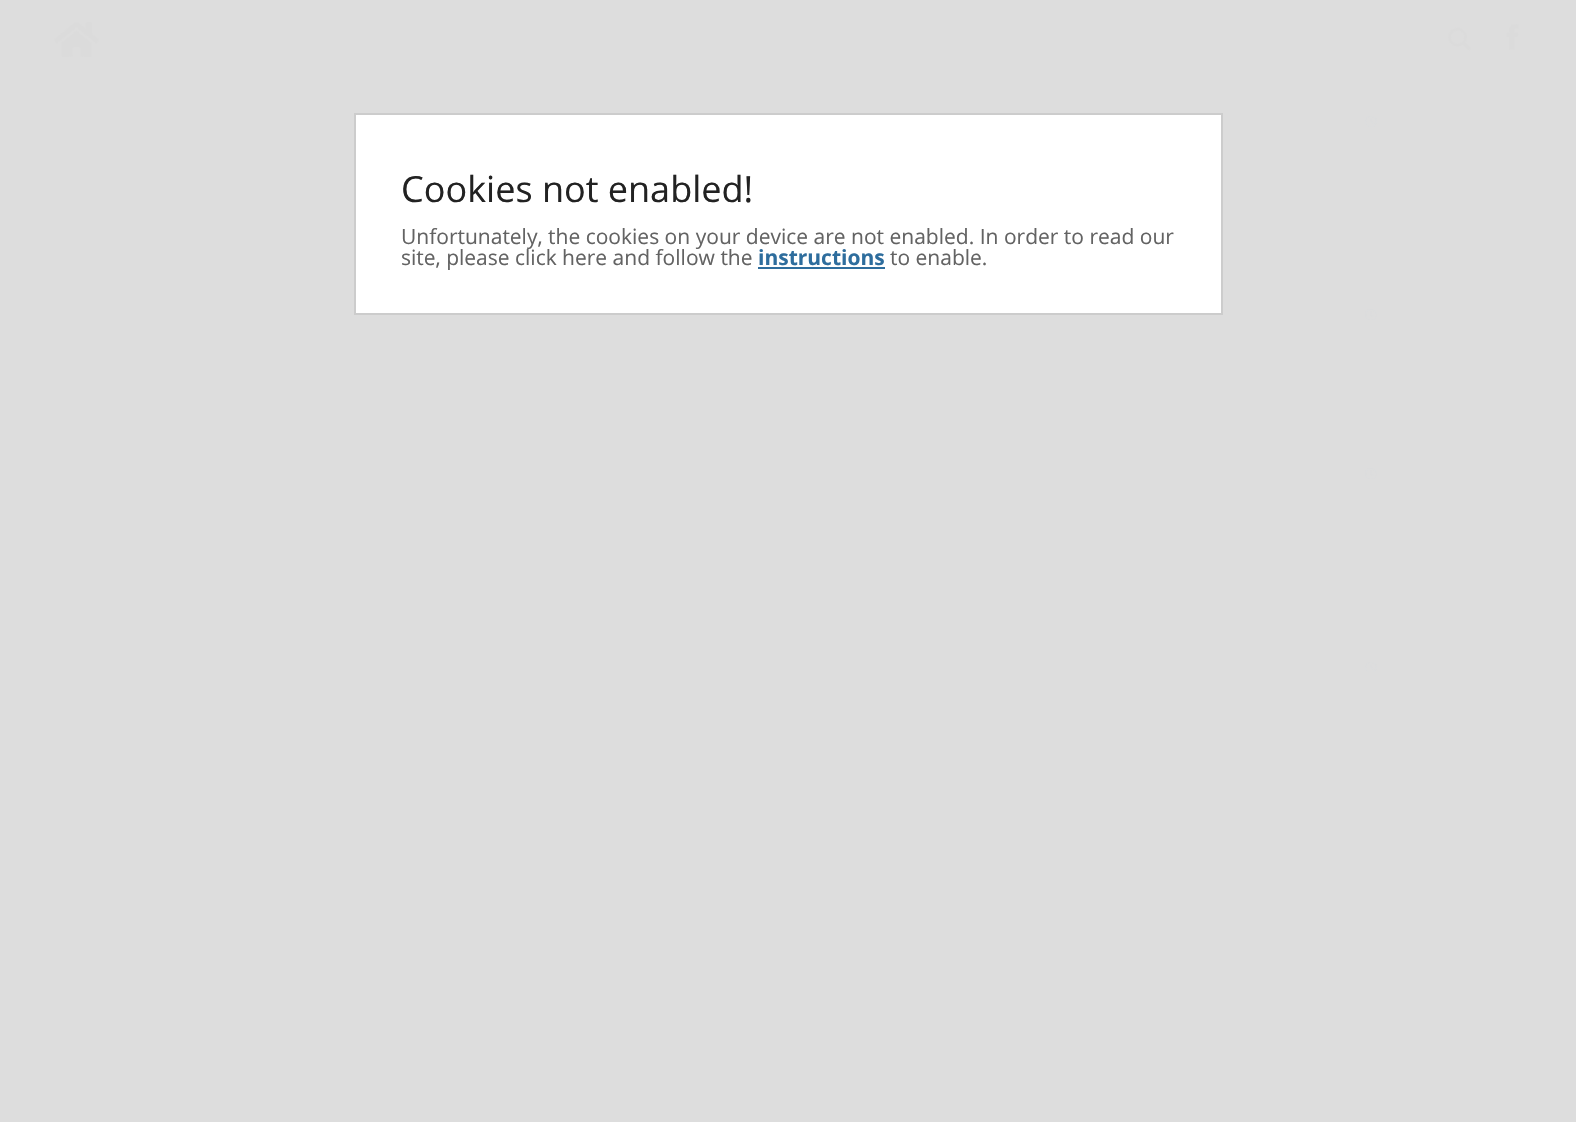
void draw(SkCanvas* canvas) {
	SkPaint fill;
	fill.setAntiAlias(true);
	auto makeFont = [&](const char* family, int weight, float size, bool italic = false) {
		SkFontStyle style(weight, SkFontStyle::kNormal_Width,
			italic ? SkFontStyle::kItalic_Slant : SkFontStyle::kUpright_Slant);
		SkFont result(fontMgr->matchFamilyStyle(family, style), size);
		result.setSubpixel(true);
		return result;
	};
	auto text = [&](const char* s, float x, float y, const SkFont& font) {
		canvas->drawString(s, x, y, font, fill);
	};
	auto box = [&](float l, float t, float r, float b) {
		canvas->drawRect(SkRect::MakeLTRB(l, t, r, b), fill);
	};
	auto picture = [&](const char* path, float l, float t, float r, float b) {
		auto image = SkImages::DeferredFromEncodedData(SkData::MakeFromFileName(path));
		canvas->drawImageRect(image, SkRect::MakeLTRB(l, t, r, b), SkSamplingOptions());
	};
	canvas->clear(0xFFDDDDDD);
	picture("image0.png", 54, 22, 99, 57);
	picture("image1.png", 1448, 27, 1471, 51);
	picture("image2.png", 1506, 24, 1519, 50);
	picture("image3.png", 1365, 116, 1377, 128);
	picture("image4.png", 1365, 309, 1377, 320);
	picture("image4.png", 1365, 468, 1377, 479);
	picture("image5.png", 1365, 662, 1377, 672);
	fill.setColor(0xFFFFFFFF);
	canvas->drawRect(SkRect::MakeLTRB(355, 114, 1222, 314), fill);
	fill.setStyle(SkPaint::kStroke_Style);
	fill.setStrokeWidth(2);
	fill.setColor(0xFFCCCCCC);
	canvas->drawRect(SkRect::MakeLTRB(355, 114, 1222, 314), fill);
	fill.setStyle(SkPaint::kFill_Style);
	fill.setColor(0xFF2E6D9D);
	box(758, 267, 885, 269);
	auto font1 = makeFont("Open Sans", 400, 36);
	fill.setColor(0xFF222222);
	text("Cookies not enabled!", 401, 202, font1);
	auto font2 = makeFont("Open Sans", 400, 21);
	fill.setColor(0xFF636363);
	text("Unfortunately, the cookies on your device are not enabled. In order to read our", 401, 244, font2);
	text("site, please click here and follow the", 401, 265, font2);
	auto font3 = makeFont("Open Sans", 700, 21);
	fill.setColor(0xFF2E6D9D);
	text("instructions", 758, 265, font3);
	fill.setColor(0xFF636363);
	text("to enable.", 890, 265, font2);
}
